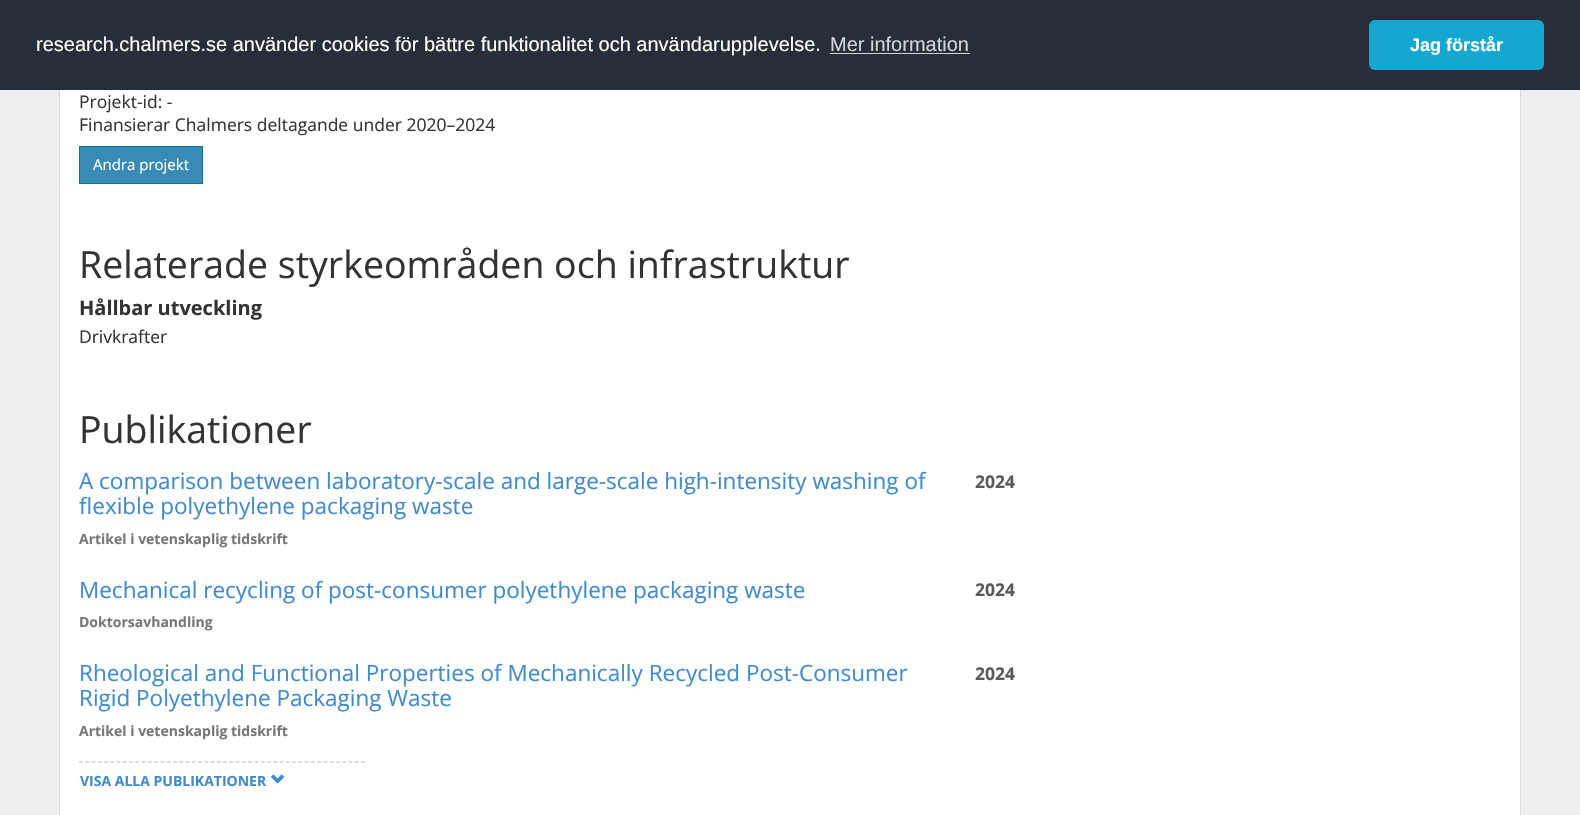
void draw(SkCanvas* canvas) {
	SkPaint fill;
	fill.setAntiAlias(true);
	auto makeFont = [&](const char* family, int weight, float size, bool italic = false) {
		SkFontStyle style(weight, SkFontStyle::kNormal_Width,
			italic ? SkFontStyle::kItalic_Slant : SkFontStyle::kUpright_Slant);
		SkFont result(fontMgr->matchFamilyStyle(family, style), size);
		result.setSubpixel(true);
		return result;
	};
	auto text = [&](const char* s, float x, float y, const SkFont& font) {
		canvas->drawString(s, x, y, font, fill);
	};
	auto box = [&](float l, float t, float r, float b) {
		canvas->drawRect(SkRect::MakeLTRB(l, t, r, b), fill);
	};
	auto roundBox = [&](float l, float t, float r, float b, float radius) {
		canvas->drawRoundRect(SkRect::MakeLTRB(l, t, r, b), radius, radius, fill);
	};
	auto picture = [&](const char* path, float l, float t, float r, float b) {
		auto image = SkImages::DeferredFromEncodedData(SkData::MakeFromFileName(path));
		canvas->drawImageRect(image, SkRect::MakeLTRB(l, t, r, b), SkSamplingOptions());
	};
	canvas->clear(0xFFEEEEEE);
	fill.setColor(0xFF252E39);
	box(0, 0, 1580, 90);
	fill.setColor(0xFFD3D5D7);
	box(830, 53, 970, 54);
	fill.setColor(0xFF14A7D0);
	roundBox(1369, 20, 1544, 70, 6);
	fill.setColor(0xFFFFFFFF);
	box(60, 90, 1520, 815);
	fill.setColor(0xFFDCDCDC);
	box(1520, 90, 1521, 815);
	box(59, 90, 60, 815);
	fill.setColor(0xFF398BB7);
	canvas->drawRect(SkRect::MakeLTRB(79.5f, 146.5f, 202.5f, 183.5f), fill);
	fill.setStyle(SkPaint::kStroke_Style);
	fill.setStrokeWidth(1);
	fill.setColor(0xFF0E72A7);
	canvas->drawRect(SkRect::MakeLTRB(79.5f, 146.5f, 202.5f, 183.5f), fill);
	fill.setStrokeWidth(1.2f);
	fill.setColor(0xFFBBBBBB);
	fill.setPathEffect(SkDashPathEffect::Make({{3.75f, 2.52f}}, 0));
	canvas->drawPath(SkPathBuilder().moveTo(79, 762).lineTo(365, 762).detach(), fill);
	fill.setPathEffect(nullptr);
	picture("image0.png", 270, 774, 285, 784);
	auto font1 = makeFont("Liberation Sans", 400, 20);
	fill.setStyle(SkPaint::kFill_Style);
	fill.setColor(0xFFFFFFFF);
	text("research.chalmers.se använder cookies för bättre funktionalitet och användarupplevelse.", 36, 51, font1);
	fill.setColor(0xFFD3D5D7);
	text("Mer information", 830, 51, font1);
	auto font2 = makeFont("Liberation Sans", 700, 18);
	fill.setColor(0xFFFFFFFF);
	text("Jag förstår", 1410, 51, font2);
	auto font3 = makeFont("Open Sans", 400, 17.5f);
	fill.setColor(0xFF333333);
	text("Projekt-id: -", 79, 108, font3);
	text("Finansierar Chalmers deltagande under 2020–2024", 79, 131, font3);
	auto font4 = makeFont("Open Sans", 400, 15);
	fill.setColor(0xFFFFFFFF);
	text("Andra projekt", 93, 170, font4);
	auto font5 = makeFont("Open Sans", 400, 37.5f);
	fill.setColor(0xFF333333);
	text("Relaterade styrkeområden och infrastruktur", 79, 278, font5);
	auto font6 = makeFont("Open Sans", 700, 20);
	text("Hållbar utveckling", 79, 315, font6);
	text("Drivkrafter", 79, 343, font3);
	text("Publikationer", 79, 443, font5);
	auto font7 = makeFont("Open Sans", 400, 22.5f);
	fill.setColor(0xFF428BCA);
	text("A comparison between laboratory-scale and large-scale high-intensity washing of", 79, 489, font7);
	text("flexible polyethylene packaging waste", 79, 514, font7);
	auto font8 = makeFont("Open Sans", 700, 17.5f);
	fill.setColor(0xFF5A5A5A);
	text("2024", 975, 488, font8);
	auto font9 = makeFont("Open Sans", 700, 14);
	fill.setColor(0xFF787878);
	text("Artikel i vetenskaplig tidskrift", 79, 544, font9);
	fill.setColor(0xFF428BCA);
	text("Mechanical recycling of post-consumer polyethylene packaging waste", 79, 598, font7);
	fill.setColor(0xFF5A5A5A);
	text("2024", 975, 596, font8);
	fill.setColor(0xFF787878);
	text("Doktorsavhandling", 79, 627, font9);
	fill.setColor(0xFF428BCA);
	text("Rheological and Functional Properties of Mechanically Recycled Post-Consumer", 79, 681, font7);
	text("Rigid Polyethylene Packaging Waste", 79, 706, font7);
	fill.setColor(0xFF5A5A5A);
	text("2024", 975, 680, font8);
	fill.setColor(0xFF787878);
	text("Artikel i vetenskaplig tidskrift", 79, 736, font9);
	fill.setColor(0xFF428BCA);
	text("VISA ALLA PUBLIKATIONER", 80, 786, font9);
}
